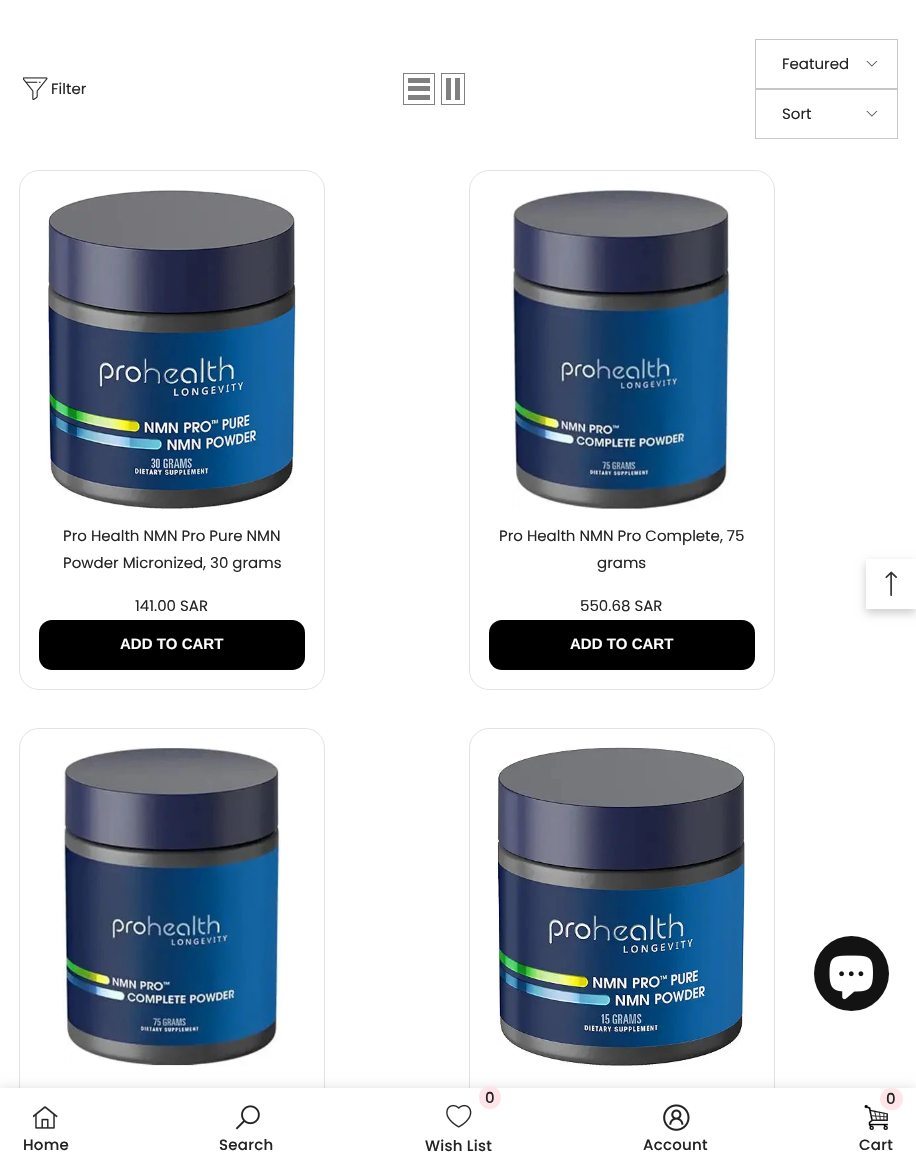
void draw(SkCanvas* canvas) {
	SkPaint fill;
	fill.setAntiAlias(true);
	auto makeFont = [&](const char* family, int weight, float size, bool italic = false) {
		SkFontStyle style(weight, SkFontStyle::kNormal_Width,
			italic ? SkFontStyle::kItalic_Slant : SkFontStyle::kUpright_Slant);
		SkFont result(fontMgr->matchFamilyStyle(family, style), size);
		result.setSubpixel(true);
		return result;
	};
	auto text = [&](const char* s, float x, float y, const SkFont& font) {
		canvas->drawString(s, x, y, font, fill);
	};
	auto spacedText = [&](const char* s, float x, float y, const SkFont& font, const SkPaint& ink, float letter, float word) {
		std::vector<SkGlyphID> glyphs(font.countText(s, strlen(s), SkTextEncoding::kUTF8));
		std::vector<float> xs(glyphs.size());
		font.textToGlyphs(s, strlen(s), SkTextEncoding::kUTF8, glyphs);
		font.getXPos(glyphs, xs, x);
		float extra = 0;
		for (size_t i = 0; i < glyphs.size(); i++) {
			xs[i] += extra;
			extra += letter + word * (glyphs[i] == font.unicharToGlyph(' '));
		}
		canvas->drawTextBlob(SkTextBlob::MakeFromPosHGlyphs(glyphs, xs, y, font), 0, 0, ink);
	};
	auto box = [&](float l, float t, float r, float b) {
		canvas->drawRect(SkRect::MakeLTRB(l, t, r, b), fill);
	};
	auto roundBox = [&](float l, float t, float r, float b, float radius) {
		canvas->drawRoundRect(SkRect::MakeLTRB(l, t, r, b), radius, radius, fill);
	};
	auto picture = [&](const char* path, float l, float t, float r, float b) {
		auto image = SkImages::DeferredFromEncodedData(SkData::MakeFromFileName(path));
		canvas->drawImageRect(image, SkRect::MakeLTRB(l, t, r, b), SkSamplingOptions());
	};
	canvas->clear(0xFFFFFFFF);
	picture("image0.png", 23, 77, 48, 101);
	fill.setStyle(SkPaint::kStroke_Style);
	fill.setStrokeWidth(1);
	fill.setColor(0xFF808080);
	canvas->drawRect(SkRect::MakeLTRB(403.5f, 73.5f, 434.5f, 104.5f), fill);
	fill.setStyle(SkPaint::kFill_Style);
	box(408, 95, 430, 100);
	box(408, 86, 430, 91);
	box(408, 78, 430, 83);
	fill.setStyle(SkPaint::kStroke_Style);
	canvas->drawRect(SkRect::MakeLTRB(441.5f, 73.5f, 464.5f, 104.5f), fill);
	fill.setStyle(SkPaint::kFill_Style);
	box(455, 78, 460, 100);
	box(446, 78, 451, 100);
	fill.setStyle(SkPaint::kStroke_Style);
	fill.setColor(0xFFC7C7C7);
	canvas->drawRect(SkRect::MakeLTRB(755.5f, 39.5f, 897.5f, 88.5f), fill);
	picture("image1.png", 866, 61, 878, 67);
	canvas->drawRect(SkRect::MakeLTRB(755.5f, 89.5f, 897.5f, 138.5f), fill);
	picture("image1.png", 866, 111, 878, 117);
	fill.setColor(0xFFE3E3E3);
	canvas->drawRoundRect(SkRect::MakeLTRB(19.5f, 170.5f, 324.5f, 689.5f), 19.5f, 19.5f, fill);
	picture("image2.png", 47, 190, 297, 510);
	fill.setStyle(SkPaint::kFill_Style);
	fill.setColor(0xFF000000);
	roundBox(39, 620, 305, 670, 13);
	fill.setStyle(SkPaint::kStroke_Style);
	fill.setColor(0xFFE3E3E3);
	canvas->drawRoundRect(SkRect::MakeLTRB(469.5f, 170.5f, 774.5f, 689.5f), 19.5f, 19.5f, fill);
	picture("image3.png", 511, 190, 731, 510);
	fill.setStyle(SkPaint::kFill_Style);
	fill.setColor(0xFF000000);
	roundBox(489, 620, 755, 670, 13);
	fill.setStyle(SkPaint::kStroke_Style);
	fill.setColor(0xFFE3E3E3);
	canvas->drawRoundRect(SkRect::MakeLTRB(19.5f, 728.5f, 324.5f, 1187.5f), 19.5f, 19.5f, fill);
	picture("image4.png", 62, 747, 281, 1066);
	canvas->drawRoundRect(SkRect::MakeLTRB(469.5f, 728.5f, 774.5f, 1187.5f), 19.5f, 19.5f, fill);
	picture("image5.png", 497, 747, 745, 1066);
	fill.setStyle(SkPaint::kFill_Style);
	fill.setColor(0x1F000000);
	fill.setMaskFilter(SkMaskFilter::MakeBlur(kNormal_SkBlurStyle, 5.5f));
	canvas->drawRect(SkRect::MakeLTRB(0, 1088, 916, 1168), fill);
	fill.setMaskFilter(nullptr);
	fill.setColor(0xFFFFFFFF);
	box(0, 1088, 916, 1167);
	picture("image6.png", 33, 1106, 58, 1129);
	picture("image7.png", 235, 1105, 260, 1130);
	fill.setColor(0xFFFFE5E8);
	roundBox(479, 1086, 501, 1109, 11);
	picture("image8.png", 446, 1104, 472, 1128);
	picture("image9.png", 663, 1104, 690, 1131);
	picture("image10.png", 864, 1105, 888, 1130);
	roundBox(880, 1088, 903, 1110, 11);
	fill.setColor(0x33000000);
	fill.setMaskFilter(SkMaskFilter::MakeBlur(kNormal_SkBlurStyle, 4.5f));
	canvas->drawRect(SkRect::MakeLTRB(866, 563, 916, 613), fill);
	fill.setMaskFilter(nullptr);
	fill.setColor(0xFFFFFFFF);
	box(866, 559, 916, 609);
	picture("image11.png", 885, 571, 897, 596);
	fill.setColor(0xFF131313);
	canvas->drawCircle(851.5f, 973.5f, 37.5f, fill);
	picture("image12.png", 829, 955, 873, 1000);
	auto font1 = makeFont("Poppins", 400, 15);
	fill.setColor(0xFF232323);
	text("Filter", 51, 94, font1);
	text("Featured", 782, 69, font1);
	text("Sort", 782, 119, font1);
	text("Pro Health NMN Pro Pure NMN", 63, 541, font1);
	text("Powder Micronized, 30 grams", 63, 568, font1);
	text("141.00 SAR", 135, 611, font1);
	auto font2 = makeFont("Liberation Sans", 700, 15);
	fill.setColor(0xFFFFFFFF);
	text("ADD TO CART", 120, 649, font2);
	fill.setColor(0xFF232323);
	text("Pro Health NMN Pro Complete, 75", 499, 541, font1);
	text("grams", 597, 568, font1);
	text("550.68 SAR", 580, 611, font1);
	fill.setColor(0xFFFFFFFF);
	text("ADD TO CART", 570, 649, font2);
	auto font3 = makeFont("Poppins", 500, 15);
	fill.setColor(0xFF232323);
	spacedText("Home", 23, 1150, font3, fill, 0.25f, 0);
	spacedText("Search", 219, 1150, font3, fill, 0.25f, 0);
	spacedText("0", 485, 1103, font3, fill, 0.25f, 0);
	spacedText("Wish List", 425, 1151, font3, fill, 0.25f, 0);
	spacedText("Account", 643, 1150, font3, fill, 0.25f, 0);
	text("0", 886, 1104, font3);
	spacedText("Cart", 859, 1150, font3, fill, 0.25f, 0);
}
